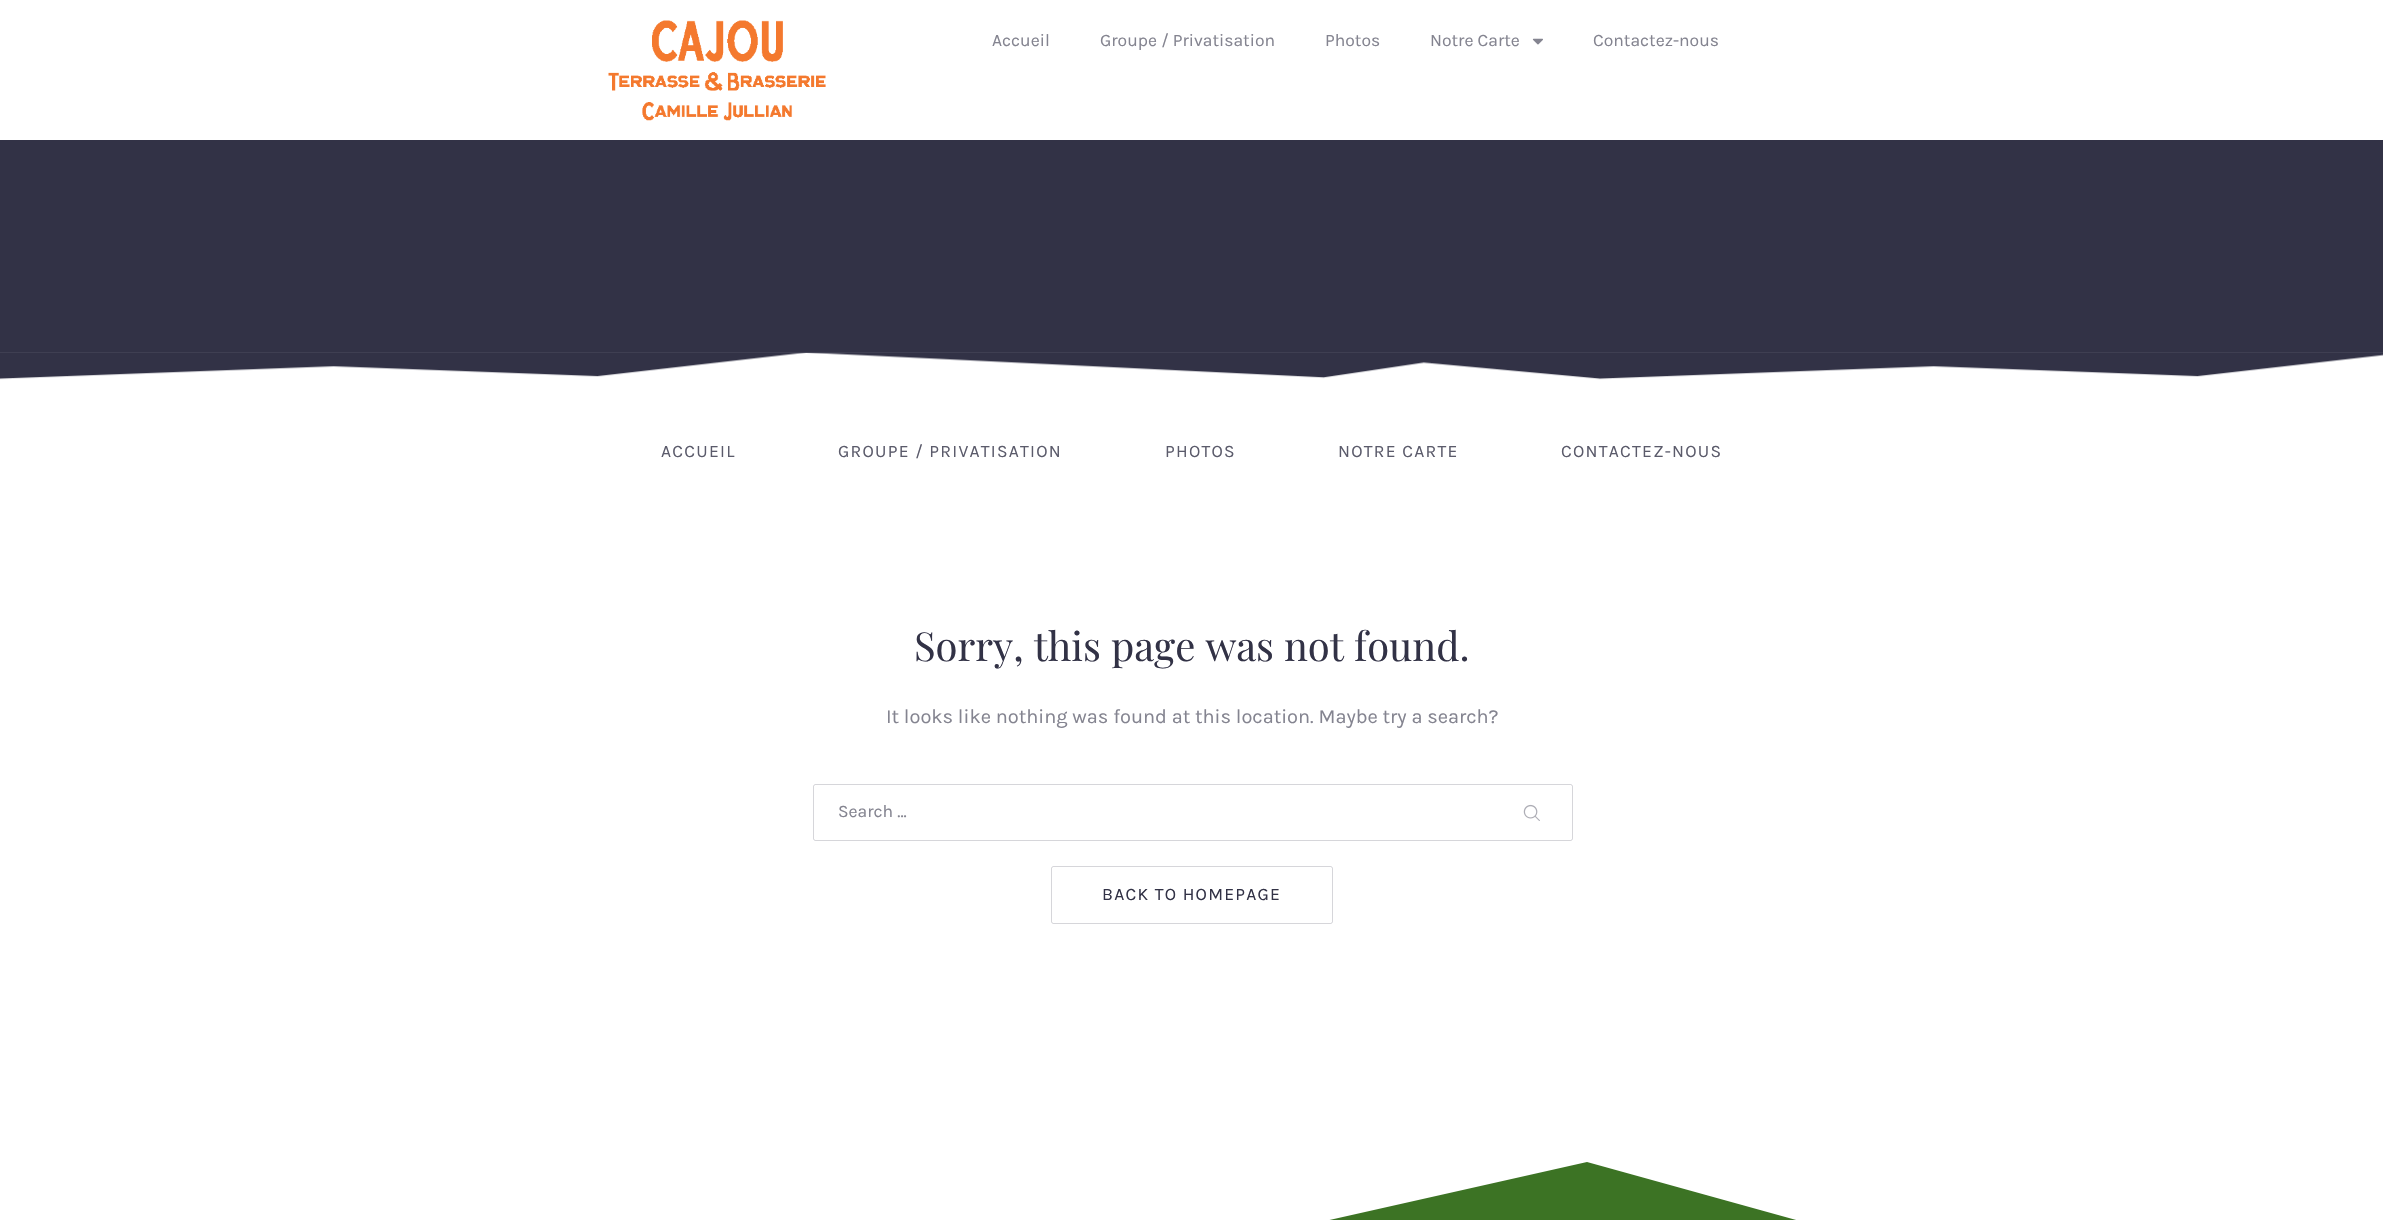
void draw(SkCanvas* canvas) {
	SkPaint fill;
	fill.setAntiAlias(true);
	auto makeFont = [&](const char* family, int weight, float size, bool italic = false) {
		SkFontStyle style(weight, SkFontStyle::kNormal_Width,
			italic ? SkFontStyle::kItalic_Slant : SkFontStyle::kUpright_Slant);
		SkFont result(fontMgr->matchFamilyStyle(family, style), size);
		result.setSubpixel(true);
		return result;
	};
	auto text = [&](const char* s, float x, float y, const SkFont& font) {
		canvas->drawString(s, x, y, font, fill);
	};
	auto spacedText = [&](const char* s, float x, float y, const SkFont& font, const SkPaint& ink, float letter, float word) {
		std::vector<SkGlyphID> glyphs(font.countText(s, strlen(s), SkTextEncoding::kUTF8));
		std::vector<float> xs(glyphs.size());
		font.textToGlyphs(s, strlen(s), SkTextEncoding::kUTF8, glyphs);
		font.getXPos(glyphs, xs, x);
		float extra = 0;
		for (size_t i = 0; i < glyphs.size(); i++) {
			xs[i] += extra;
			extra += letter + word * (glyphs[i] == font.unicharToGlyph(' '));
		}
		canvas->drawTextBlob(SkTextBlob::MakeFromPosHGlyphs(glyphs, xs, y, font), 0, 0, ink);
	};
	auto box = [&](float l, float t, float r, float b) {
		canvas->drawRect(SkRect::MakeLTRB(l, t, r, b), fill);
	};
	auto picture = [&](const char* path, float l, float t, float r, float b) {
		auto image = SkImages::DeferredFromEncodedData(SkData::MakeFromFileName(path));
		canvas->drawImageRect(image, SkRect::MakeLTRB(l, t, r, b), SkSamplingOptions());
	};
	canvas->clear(0xFFFFFFFF);
	picture("image0.png", 608, 20, 826, 121);
	picture("image1.png", 1532, 38, 1543, 45);
	fill.setColor(0xFF323246);
	box(0, 140, 2383, 380);
	picture("image2.png", 0, 352, 2383, 390);
	fill.setStyle(SkPaint::kStroke_Style);
	fill.setStrokeWidth(1);
	fill.setColor(0x33323246);
	canvas->drawRoundRect(SkRect::MakeLTRB(813.5f, 784.5f, 1572.5f, 840.5f), 2, 2, fill);
	picture("image3.png", 1523, 804, 1540, 821);
	canvas->drawRoundRect(SkRect::MakeLTRB(1051.5f, 866.5f, 1332.5f, 923.5f), 2, 2, fill);
	fill.setStyle(SkPaint::kFill_Style);
	fill.setColor(0xFF3C7324);
	box(1329, 1162, 1796, 1220);
	canvas->save();
	canvas->clipRect(SkRect::MakeLTRB(0, 1148, 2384, 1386));
	fill.setColor(0xFFFFFFFF);
	canvas->drawPath(SkPathBuilder().moveTo(567, 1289).lineTo(850, 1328).lineTo(1587, 1162).lineTo(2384, 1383).lineTo(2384, 1147).lineTo(-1, 1147).lineTo(-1, 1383).detach(), fill);
	canvas->restore();
	auto font1 = makeFont("Karla", 400, 17.5f);
	fill.setColor(0xFF848490);
	text("Accueil", 992, 46, font1);
	text("Groupe / Privatisation", 1100, 46, font1);
	text("Photos", 1325, 46, font1);
	text("Notre Carte", 1430, 46, font1);
	text("Contactez-nous", 1593, 46, font1);
	fill.setColor(0xFF5B5B6B);
	spacedText("ACCUEIL", 661, 457, font1, fill, 1.25f, 0);
	spacedText("GROUPE / PRIVATISATION", 838, 457, font1, fill, 1.25f, 0);
	spacedText("PHOTOS", 1165, 457, font1, fill, 1.25f, 0);
	spacedText("NOTRE CARTE", 1338, 457, font1, fill, 1.25f, 0);
	spacedText("CONTACTEZ-NOUS", 1561, 457, font1, fill, 1.25f, 0);
	auto font2 = makeFont("Playfair Display", 400, 40);
	fill.setColor(0xFF323246);
	text("Sorry, this page was not found.", 914, 661, font2);
	auto font3 = makeFont("Karla", 400, 20);
	fill.setColor(0xFF848490);
	text("It looks like nothing was found at this location. Maybe try a search?", 886, 723, font3);
	text("Search ...", 838, 817, font1);
	fill.setColor(0xFF323246);
	spacedText("BACK TO HOMEPAGE", 1102, 900, font1, fill, 1.25f, 0);
}
